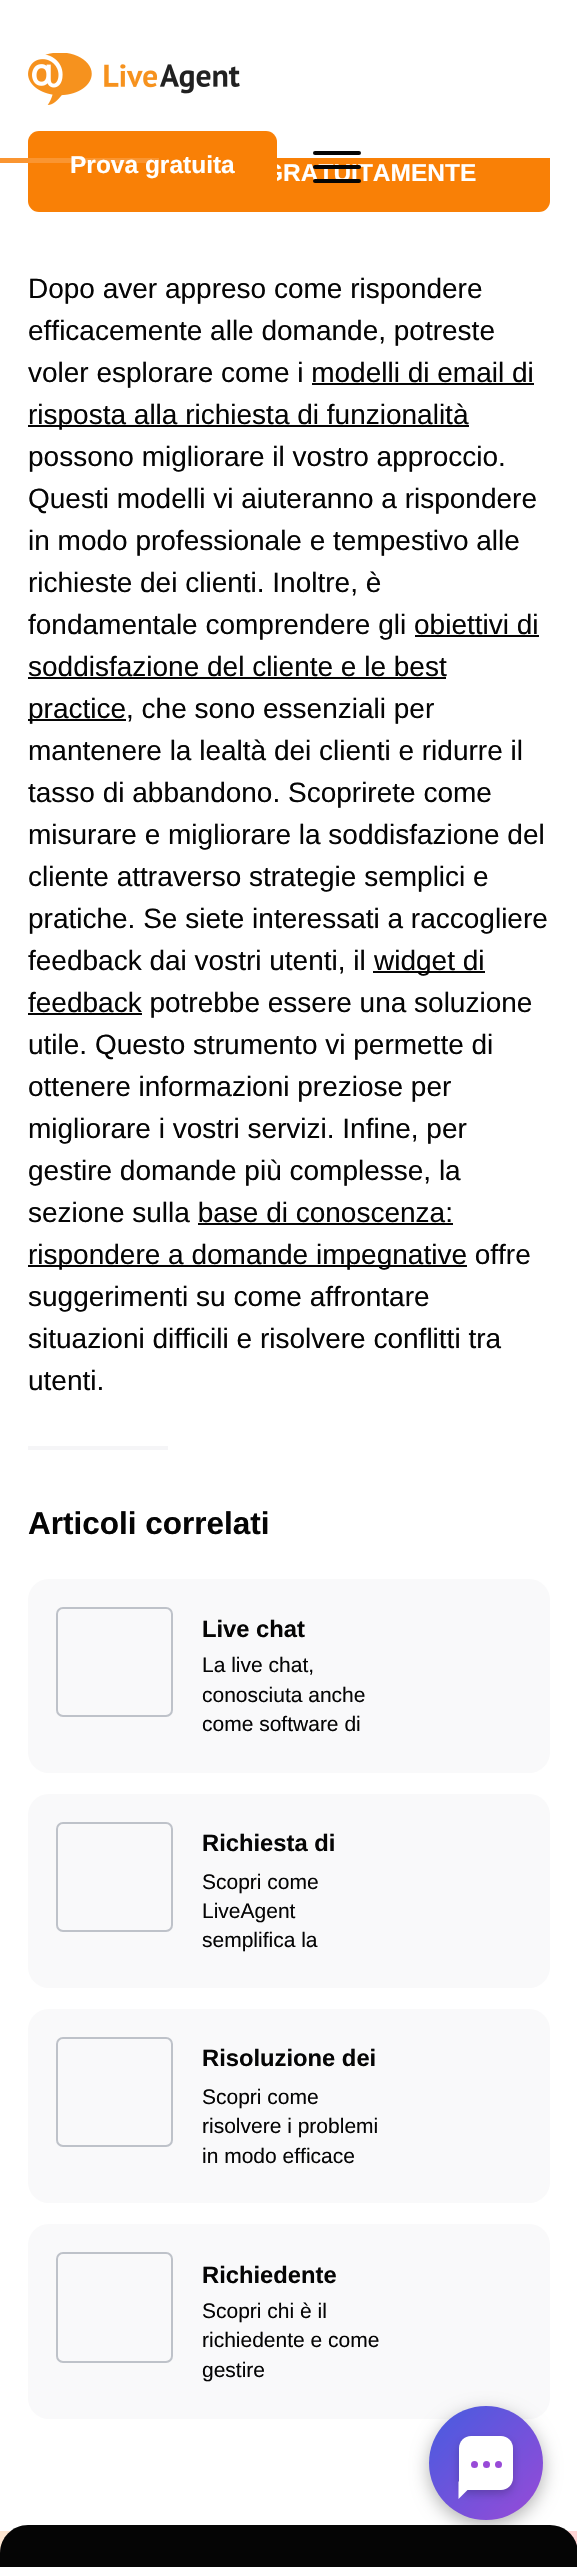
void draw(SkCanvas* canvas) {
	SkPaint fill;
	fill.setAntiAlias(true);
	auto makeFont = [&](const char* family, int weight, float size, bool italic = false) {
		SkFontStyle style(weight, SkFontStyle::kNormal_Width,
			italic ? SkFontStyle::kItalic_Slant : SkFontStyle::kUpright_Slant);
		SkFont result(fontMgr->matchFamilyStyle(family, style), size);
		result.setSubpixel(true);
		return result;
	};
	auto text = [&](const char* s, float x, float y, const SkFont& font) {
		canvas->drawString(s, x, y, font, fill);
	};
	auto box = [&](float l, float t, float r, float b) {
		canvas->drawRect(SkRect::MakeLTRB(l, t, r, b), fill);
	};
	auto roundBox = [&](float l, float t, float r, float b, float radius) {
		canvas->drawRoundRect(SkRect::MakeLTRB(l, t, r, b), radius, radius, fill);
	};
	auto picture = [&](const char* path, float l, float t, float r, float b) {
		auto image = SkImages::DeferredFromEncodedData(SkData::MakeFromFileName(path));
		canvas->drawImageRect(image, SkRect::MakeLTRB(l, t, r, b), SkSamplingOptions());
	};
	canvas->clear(0xFFFFFFFF);
	fill.setColor(0xFFF98006);
	roundBox(28, 137, 550, 212, 11);
	fill.setColor(0xFFFFFFFF);
	box(28, 137, 550, 158);
	picture("image0.png", 28, 53, 240, 105);
	fill.setColor(0xFF050505);
	roundBox(313, 151, 361, 155, 2);
	box(312, 383, 534, 385);
	box(28, 425, 469, 427);
	box(415, 635, 539, 637);
	box(28, 677, 446, 679);
	box(28, 719, 126, 721);
	box(373, 971, 485, 973);
	box(28, 1013, 142, 1015);
	box(198, 1223, 453, 1225);
	box(28, 1265, 467, 1267);
	fill.setColor(0xFFF5F5F7);
	box(28, 1446, 168, 1450);
	fill.setColor(0xFFF9F9FA);
	roundBox(28, 1579, 550, 1773, 21);
	fill.setStyle(SkPaint::kStroke_Style);
	fill.setStrokeWidth(2);
	fill.setColor(0xFFBEC2C9);
	canvas->drawRoundRect(SkRect::MakeLTRB(57, 1608, 172, 1716), 6, 6, fill);
	fill.setStyle(SkPaint::kFill_Style);
	fill.setColor(0xFFF9F9FA);
	roundBox(28, 1794, 550, 1988, 21);
	fill.setStyle(SkPaint::kStroke_Style);
	fill.setColor(0xFFBEC2C9);
	canvas->drawRoundRect(SkRect::MakeLTRB(57, 1823, 172, 1931), 6, 6, fill);
	fill.setStyle(SkPaint::kFill_Style);
	fill.setColor(0xFFF9F9FA);
	roundBox(28, 2009, 550, 2203, 21);
	fill.setStyle(SkPaint::kStroke_Style);
	fill.setColor(0xFFBEC2C9);
	canvas->drawRoundRect(SkRect::MakeLTRB(57, 2038, 172, 2146), 6, 6, fill);
	fill.setStyle(SkPaint::kFill_Style);
	fill.setColor(0xFFF9F9FA);
	roundBox(28, 2224, 550, 2419, 21);
	fill.setStyle(SkPaint::kStroke_Style);
	fill.setColor(0xFFBEC2C9);
	canvas->drawRoundRect(SkRect::MakeLTRB(57, 2253, 172, 2362), 6, 6, fill);
	fill.setStyle(SkPaint::kFill_Style);
	{
		const SkColor colors[] = {0xFFFFE9D3, 0xFFFFE6CE, 0xFFE5EBFF, 0xFFFED3D3};
		const float stops[] = {0, 0, 0.61f, 0.86f};
		const SkPoint ends[] = {{-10, 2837}, {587, 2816}};
		fill.setShader(SkGradientShader::MakeLinear(ends, colors, stops, 4, SkTileMode::kClamp));
		fill.setAlpha(255);
	}
	box(0, 2531, 577, 2553);
	fill.setShader(nullptr);
	fill.setColor(0x4D000000);
	fill.setMaskFilter(SkMaskFilter::MakeBlur(kNormal_SkBlurStyle, 9));
	canvas->drawRoundRect(SkRect::MakeLTRB(429, 2412, 543, 2525), 56.5f, 56.5f, fill);
	fill.setMaskFilter(nullptr);
	fill.setColor(0xFF050505);
	canvas->drawPath(SkPathBuilder().moveTo(28, 2525).lineTo(550, 2525).cubicTo(565.5f, 2525, 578, 2537.5f, 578, 2553).lineTo(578, 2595).lineTo(0, 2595).lineTo(0, 2553).cubicTo(0, 2537.5f, 12.5f, 2525, 28, 2525).close().detach(), fill);
	{
		const SkColor colors[] = {0xFF465CE0, 0xFF984AD7};
		const float stops[] = {0, 1};
		const SkPoint ends[] = {{429, 2406}, {543, 2520}};
		fill.setShader(SkGradientShader::MakeLinear(ends, colors, stops, 2, SkTileMode::kClamp));
		fill.setAlpha(255);
	}
	canvas->drawCircle(486, 2463, 57, fill);
	fill.setShader(nullptr);
	fill.setColor(0x33000000);
	fill.setMaskFilter(SkMaskFilter::MakeBlur(kNormal_SkBlurStyle, 4.5f));
	canvas->drawRoundRect(SkRect::MakeLTRB(459, 2440, 513, 2494), 12, 12, fill);
	fill.setMaskFilter(nullptr);
	fill.setColor(0xFFFFFFFF);
	canvas->drawPath(SkPathBuilder().moveTo(471, 2436).lineTo(501, 2436).cubicTo(507.5f, 2436, 513, 2441.5f, 513, 2448).lineTo(513, 2478).cubicTo(513, 2484.5f, 507.5f, 2490, 501, 2490).lineTo(459, 2490).lineTo(459, 2448).cubicTo(459, 2441.5f, 464.5f, 2436, 471, 2436).close().detach(), fill);
	fill.setColor(0xFF984AD7);
	canvas->drawCircle(474.5f, 2464.5f, 3.5f, fill);
	canvas->drawCircle(486.5f, 2464.5f, 3.5f, fill);
	canvas->drawCircle(498.5f, 2464.5f, 3.5f, fill);
	fill.setColor(0xFFFFFFFF);
	canvas->drawPath(SkPathBuilder().moveTo(458.5f, 2499).lineTo(458.5f, 2481.5f).lineTo(476, 2481.5f).close().detach(), fill);
	auto font1 = makeFont("Liberation Sans", 700, 24.5f);
	text("GRATUITAMENTE", 264, 181, font1);
	fill.setColor(0xFFF98006);
	roundBox(28, 131, 277, 201, 11);
	fill.setColor(0xFFFA9531);
	box(0, 158, 159, 163);
	fill.setColor(0xFFFFFFFF);
	text("Prova gratuita", 70, 173, font1);
	fill.setColor(0xFF050505);
	roundBox(313, 179, 361, 183, 2);
	roundBox(313, 165, 361, 169, 2);
	auto font2 = makeFont("Liberation Sans", 400, 28);
	text("Dopo aver appreso come rispondere", 28, 298, font2);
	text("efficacemente alle domande, potreste", 28, 340, font2);
	text("voler esplorare come i modelli di email di", 28, 382, font2);
	text("risposta alla richiesta di funzionalità", 28, 424, font2);
	text("possono migliorare il vostro approccio.", 28, 466, font2);
	text("Questi modelli vi aiuteranno a rispondere", 28, 508, font2);
	text("in modo professionale e tempestivo alle", 28, 550, font2);
	text("richieste dei clienti. Inoltre, è", 28, 592, font2);
	text("fondamentale comprendere gli obiettivi di", 28, 634, font2);
	text("soddisfazione del cliente e le best", 28, 676, font2);
	text("practice, che sono essenziali per", 28, 718, font2);
	text("mantenere la lealtà dei clienti e ridurre il", 28, 760, font2);
	text("tasso di abbandono. Scoprirete come", 28, 802, font2);
	text("misurare e migliorare la soddisfazione del", 28, 844, font2);
	text("cliente attraverso strategie semplici e", 28, 886, font2);
	text("pratiche. Se siete interessati a raccogliere", 28, 928, font2);
	text("feedback dai vostri utenti, il", 28, 970, font2);
	text("widget di", 374, 970, font2);
	text("feedback potrebbe essere una soluzione", 28, 1012, font2);
	text("utile. Questo strumento vi permette di", 28, 1054, font2);
	text("ottenere informazioni preziose per", 28, 1096, font2);
	text("migliorare i vostri servizi. Infine, per", 28, 1138, font2);
	text("gestire domande più complesse, la", 28, 1180, font2);
	text("sezione sulla base di conoscenza:", 28, 1222, font2);
	text("rispondere a domande impegnative offre", 28, 1264, font2);
	text("suggerimenti su come affrontare", 28, 1306, font2);
	text("situazioni difficili e risolvere conflitti tra", 28, 1348, font2);
	text("utenti.", 28, 1390, font2);
	auto font3 = makeFont("Liberation Sans", 700, 31.5f);
	text("Articoli correlati", 28, 1534, font3);
	auto font4 = makeFont("Liberation Sans", 700, 23.75f);
	text("Live chat", 202, 1637, font4);
	auto font5 = makeFont("Liberation Sans", 400, 21);
	text("La live chat,", 202, 1672, font5);
	text("conosciuta anche", 202, 1702, font5);
	text("come software di", 202, 1731, font5);
	text("Richiesta di", 202, 1851, font4);
	text("Scopri come", 202, 1889, font5);
	text("LiveAgent", 202, 1918, font5);
	text("semplifica la", 202, 1947, font5);
	text("Risoluzione dei", 202, 2066, font4);
	text("Scopri come", 202, 2104, font5);
	text("risolvere i problemi", 202, 2133, font5);
	text("in modo efficace", 202, 2163, font5);
	text("Richiedente", 202, 2283, font4);
	text("Scopri chi è il", 202, 2318, font5);
	text("richiedente e come", 202, 2347, font5);
	text("gestire", 202, 2377, font5);
}
